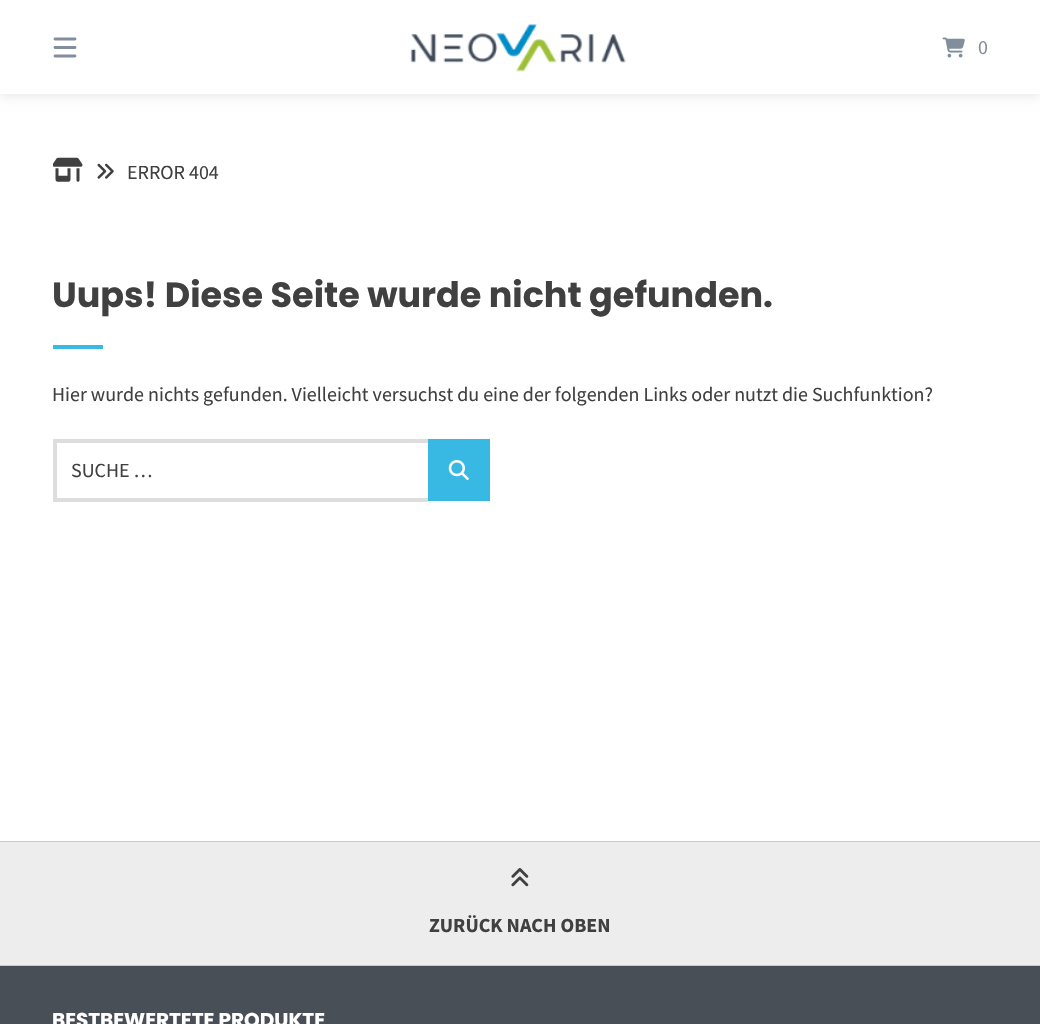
void draw(SkCanvas* canvas) {
	SkPaint fill;
	fill.setAntiAlias(true);
	auto makeFont = [&](const char* family, int weight, float size, bool italic = false) {
		SkFontStyle style(weight, SkFontStyle::kNormal_Width,
			italic ? SkFontStyle::kItalic_Slant : SkFontStyle::kUpright_Slant);
		SkFont result(fontMgr->matchFamilyStyle(family, style), size);
		result.setSubpixel(true);
		return result;
	};
	auto text = [&](const char* s, float x, float y, const SkFont& font) {
		canvas->drawString(s, x, y, font, fill);
	};
	auto box = [&](float l, float t, float r, float b) {
		canvas->drawRect(SkRect::MakeLTRB(l, t, r, b), fill);
	};
	auto picture = [&](const char* path, float l, float t, float r, float b) {
		auto image = SkImages::DeferredFromEncodedData(SkData::MakeFromFileName(path));
		canvas->drawImageRect(image, SkRect::MakeLTRB(l, t, r, b), SkSamplingOptions());
	};
	canvas->clear(0xFFFFFFFF);
	fill.setColor(0x1A000000);
	fill.setMaskFilter(SkMaskFilter::MakeBlur(kNormal_SkBlurStyle, 6));
	canvas->drawRect(SkRect::MakeLTRB(0, 1, 1040, 95), fill);
	fill.setMaskFilter(nullptr);
	fill.setColor(0xFFFFFFFF);
	box(0, 0, 1040, 94);
	fill.setStyle(SkPaint::kStroke_Style);
	fill.setStrokeWidth(2.8f);
	fill.setStrokeCap(SkPaint::kRound_Cap);
	fill.setColor(0xFF818E9B);
	canvas->drawPath(SkPathBuilder().moveTo(55, 39).lineTo(75, 39).moveTo(55, 47.5f).lineTo(75, 47.5f).moveTo(55, 56).lineTo(75, 56).detach(), fill);
	picture("image0.png", 410, 23, 626, 72);
	picture("image1.png", 942, 37, 965, 58);
	picture("image2.png", 53, 157, 83, 182);
	picture("image3.png", 97, 163, 114, 179);
	fill.setStyle(SkPaint::kFill_Style);
	fill.setColor(0xFF37B9E3);
	box(53, 345, 103, 349);
	fill.setColor(0xFFDDDDDD);
	box(53, 439, 428, 443);
	box(53, 498, 428, 502);
	box(53, 439, 57, 501);
	fill.setColor(0xFF37B9E3);
	box(428, 439, 490, 501);
	picture("image4.png", 448, 460, 469, 480);
	fill.setColor(0xFFEDEDED);
	box(0, 842, 1040, 965);
	fill.setColor(0xFFCBCBCB);
	box(0, 841, 1040, 842);
	box(0, 965, 1040, 966);
	picture("image5.png", 511, 868, 529, 887);
	fill.setColor(0xFF494F57);
	box(0, 966, 1040, 1024);
	auto font1 = makeFont("Source Sans Pro", 400, 20);
	fill.setColor(0xFF818E9B);
	text("0", 978, 54, font1);
	fill.setColor(0xFF404040);
	text("ERROR 404", 127, 179, font1);
	auto font2 = makeFont("Poppins", 700, 35);
	text("Uups! Diese Seite wurde nicht gefunden.", 52, 307, font2);
	text("Hier wurde nichts gefunden. Vielleicht versuchst du eine der folgenden Links oder nutzt die Suchfunktion?", 52, 401, font1);
	text("SUCHE …", 71, 477, font1);
	auto font3 = makeFont("Source Sans Pro", 700, 20);
	text("ZURÜCK NACH OBEN", 429, 932, font3);
	auto font4 = makeFont("Poppins", 700, 20);
	fill.setColor(0xFFFFFFFF);
	text("BESTBEWERTETE PRODUKTE", 52, 1027, font4);
}
